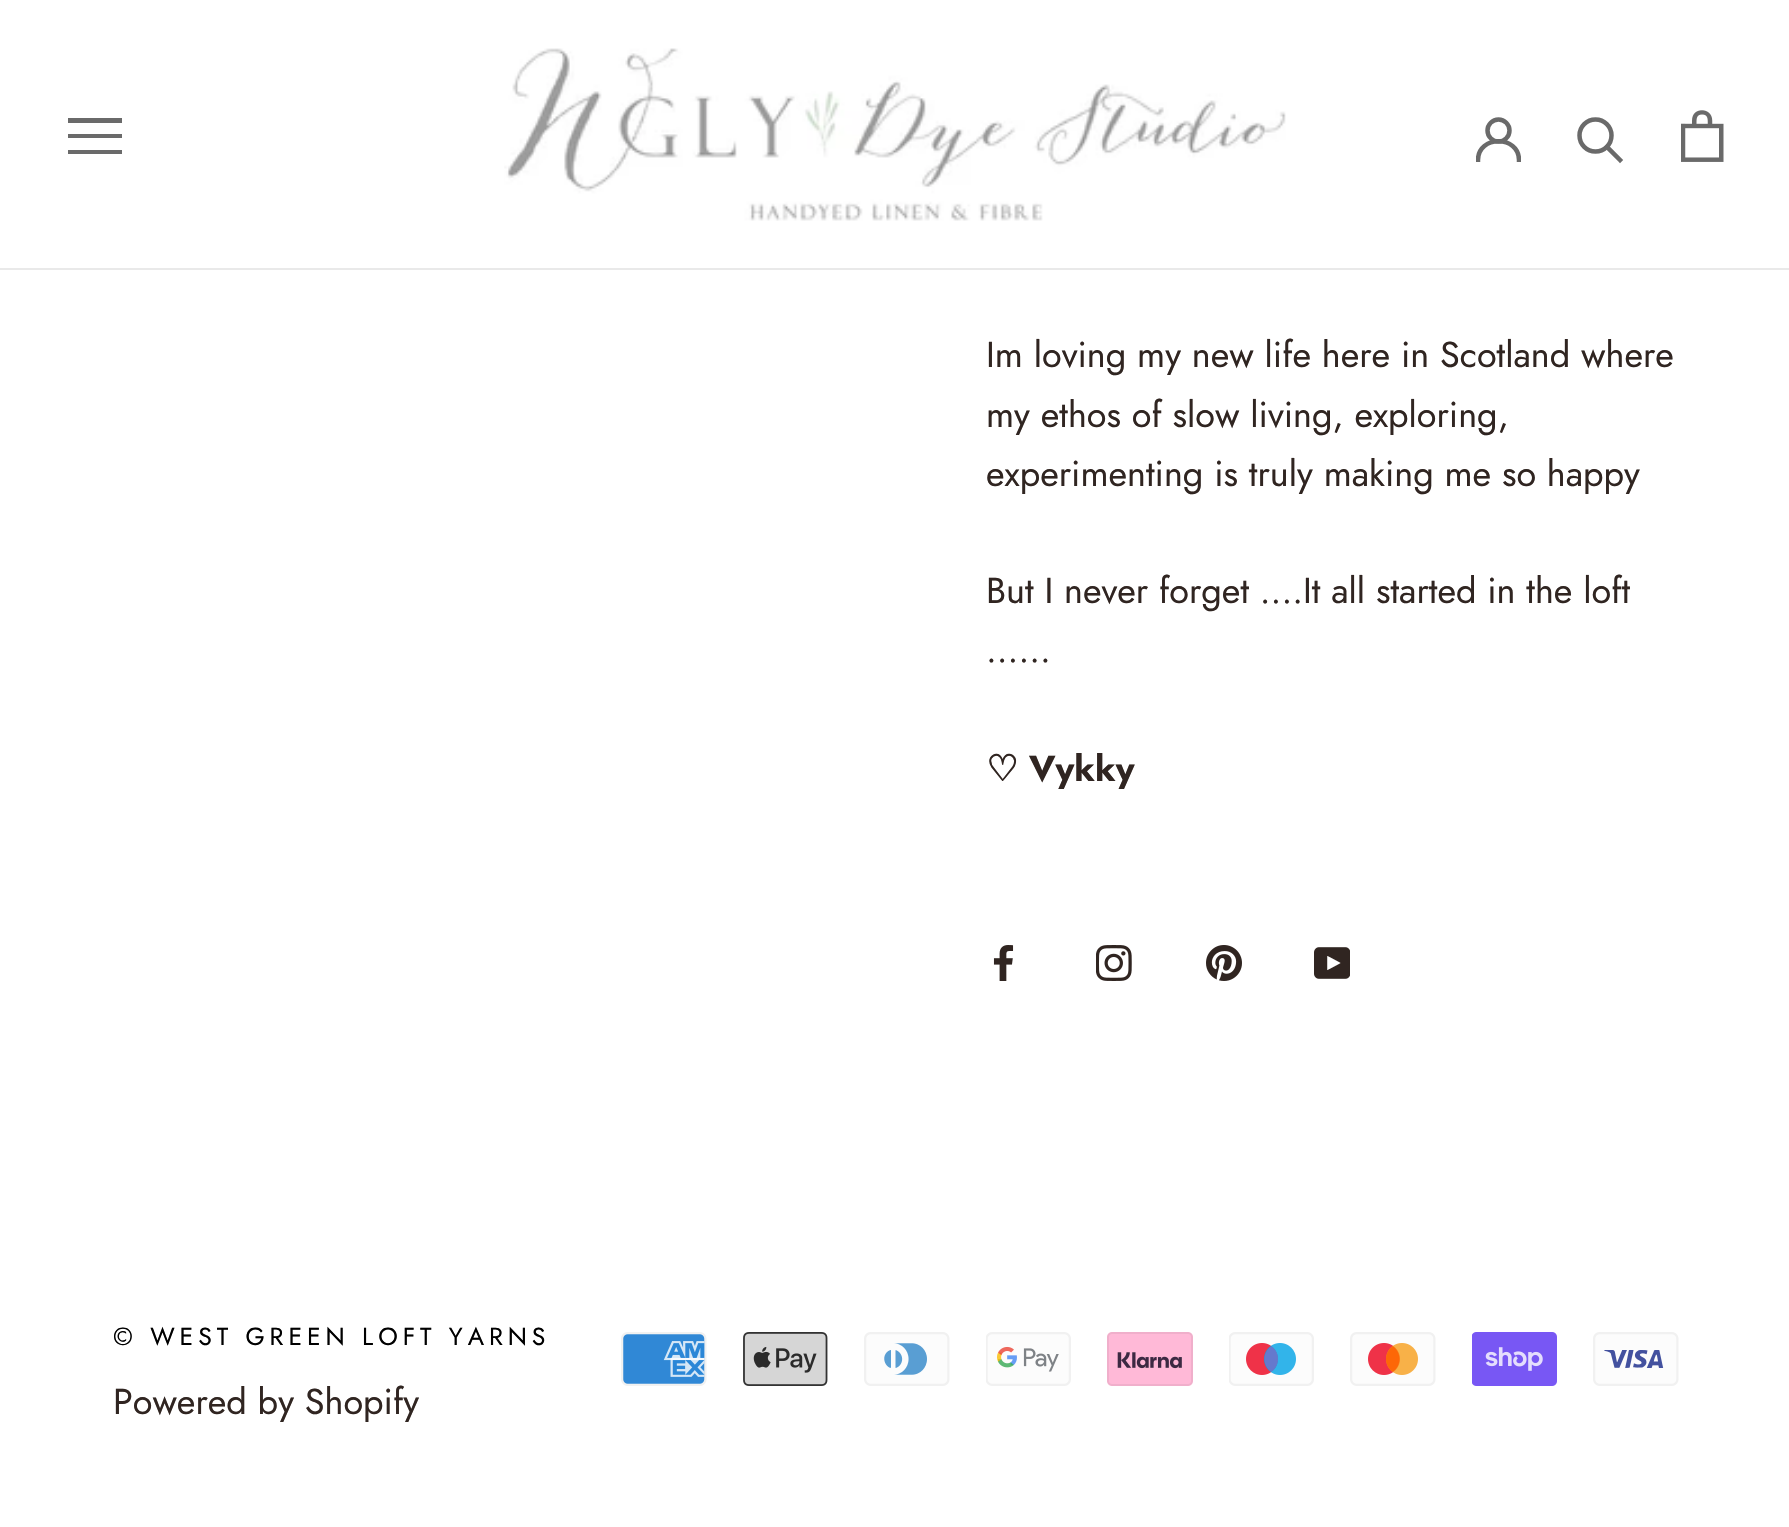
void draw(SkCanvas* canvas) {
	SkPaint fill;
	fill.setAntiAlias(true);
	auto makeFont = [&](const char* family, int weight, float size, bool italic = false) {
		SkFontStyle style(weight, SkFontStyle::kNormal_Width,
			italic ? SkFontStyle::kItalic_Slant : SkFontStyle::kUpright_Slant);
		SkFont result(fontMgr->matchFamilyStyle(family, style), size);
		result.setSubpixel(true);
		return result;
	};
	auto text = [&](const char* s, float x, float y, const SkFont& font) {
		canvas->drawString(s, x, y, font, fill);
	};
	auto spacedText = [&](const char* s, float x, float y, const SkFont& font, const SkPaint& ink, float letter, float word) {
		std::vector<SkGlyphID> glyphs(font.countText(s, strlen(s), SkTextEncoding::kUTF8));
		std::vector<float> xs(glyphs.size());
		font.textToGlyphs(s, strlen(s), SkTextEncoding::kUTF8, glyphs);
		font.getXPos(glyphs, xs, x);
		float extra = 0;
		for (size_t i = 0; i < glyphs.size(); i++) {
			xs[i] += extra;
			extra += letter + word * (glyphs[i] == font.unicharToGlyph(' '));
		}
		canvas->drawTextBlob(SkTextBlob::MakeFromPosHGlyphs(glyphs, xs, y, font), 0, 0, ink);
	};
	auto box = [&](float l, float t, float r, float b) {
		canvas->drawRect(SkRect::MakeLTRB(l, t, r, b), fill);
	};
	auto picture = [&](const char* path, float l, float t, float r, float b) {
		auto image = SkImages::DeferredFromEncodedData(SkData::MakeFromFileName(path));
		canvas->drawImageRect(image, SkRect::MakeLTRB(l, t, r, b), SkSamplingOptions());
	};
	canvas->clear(0xFFFFFFFF);
	fill.setColor(0xFFE9E9E9);
	box(0, 268, 1789, 270);
	fill.setColor(0xFF6A6A6A);
	canvas->drawPath(SkPathBuilder().moveTo(68, 154).lineTo(68, 150).lineTo(122, 150).lineTo(122, 154).close().moveTo(68, 134).lineTo(122, 134).lineTo(122, 138).lineTo(68, 138).close().moveTo(68, 118).lineTo(122, 118).lineTo(122, 123).lineTo(68, 123).close().detach(), fill);
	picture("image0.png", 504, 48, 1286, 221);
	canvas->save();
	canvas->clipRect(SkRect::MakeLTRB(1476, 117, 1521, 162));
	fill.setStyle(SkPaint::kStroke_Style);
	fill.setStrokeWidth(4.5f);
	fill.setStrokeCap(SkPaint::kSquare_Cap);
	canvas->drawPath(SkPathBuilder().moveTo(1478, 160).cubicTo(1478, 135, 1519, 135, 1519, 160).detach(), fill);
	canvas->restore();
	fill.setStrokeCap(SkPaint::kButt_Cap);
	canvas->drawCircle(1498.5f, 130.5f, 11, fill);
	fill.setStrokeCap(SkPaint::kSquare_Cap);
	canvas->drawPath(SkPathBuilder().moveTo(1620, 160).lineTo(1607, 147).detach(), fill);
	fill.setStrokeCap(SkPaint::kButt_Cap);
	canvas->drawCircle(1595.5f, 135.5f, 16, fill);
	picture("image1.png", 1681, 110, 1724, 162);
	picture("image2.png", 993, 945, 1014, 981);
	picture("image3.png", 1096, 945, 1132, 981);
	picture("image4.png", 1206, 945, 1242, 981);
	picture("image5.png", 1314, 947, 1350, 979);
	picture("image6.png", 621, 1332, 707, 1386);
	picture("image7.png", 743, 1332, 828, 1386);
	picture("image8.png", 864, 1332, 950, 1386);
	picture("image9.png", 986, 1332, 1071, 1386);
	picture("image10.png", 1107, 1332, 1193, 1386);
	picture("image11.png", 1229, 1332, 1314, 1386);
	picture("image12.png", 1350, 1332, 1436, 1386);
	picture("image13.png", 1472, 1332, 1557, 1386);
	picture("image14.png", 1593, 1332, 1679, 1386);
	auto font1 = makeFont("Jost", 400, 36);
	fill.setStyle(SkPaint::kFill_Style);
	fill.setColor(0xFF302521);
	text("Im loving my new life here in Scotland where", 986, 367, font1);
	text("my ethos of slow living, exploring,", 986, 427, font1);
	text("experimenting is truly making me so happy", 986, 486, font1);
	text("But I never forget ....It all started in the loft", 986, 603, font1);
	text("......", 986, 662, font1);
	auto font2 = makeFont("DejaVu Sans", 700, 36);
	text("♡", 986, 781, font2);
	auto font3 = makeFont("Jost", 700, 36);
	text("Vykky", 1029, 781, font3);
	auto font4 = makeFont("Jost", 400, 24.75f);
	fill.setColor(0xFF000000);
	spacedText("© WEST GREEN LOFT YARNS", 113, 1345, font4, fill, 4.95f, 0);
	fill.setColor(0xFF302521);
	text("Powered by Shopify", 113, 1414, font1);
}
